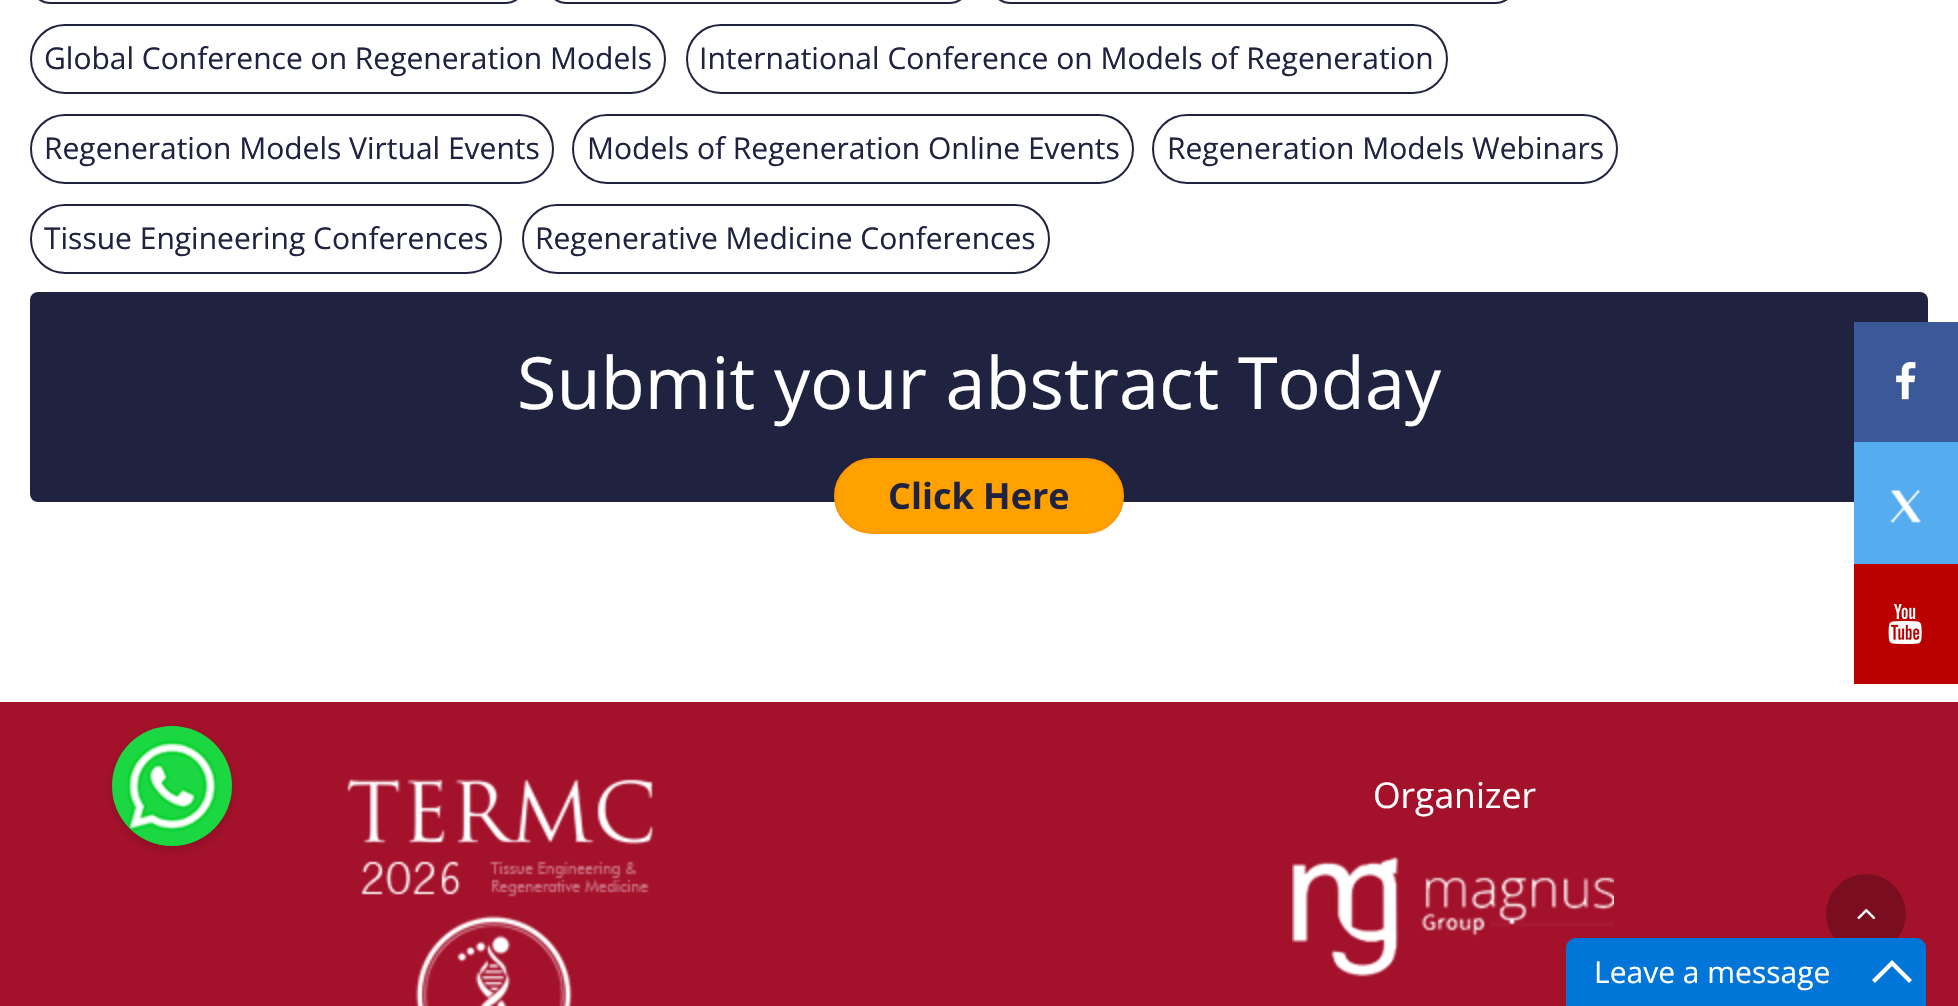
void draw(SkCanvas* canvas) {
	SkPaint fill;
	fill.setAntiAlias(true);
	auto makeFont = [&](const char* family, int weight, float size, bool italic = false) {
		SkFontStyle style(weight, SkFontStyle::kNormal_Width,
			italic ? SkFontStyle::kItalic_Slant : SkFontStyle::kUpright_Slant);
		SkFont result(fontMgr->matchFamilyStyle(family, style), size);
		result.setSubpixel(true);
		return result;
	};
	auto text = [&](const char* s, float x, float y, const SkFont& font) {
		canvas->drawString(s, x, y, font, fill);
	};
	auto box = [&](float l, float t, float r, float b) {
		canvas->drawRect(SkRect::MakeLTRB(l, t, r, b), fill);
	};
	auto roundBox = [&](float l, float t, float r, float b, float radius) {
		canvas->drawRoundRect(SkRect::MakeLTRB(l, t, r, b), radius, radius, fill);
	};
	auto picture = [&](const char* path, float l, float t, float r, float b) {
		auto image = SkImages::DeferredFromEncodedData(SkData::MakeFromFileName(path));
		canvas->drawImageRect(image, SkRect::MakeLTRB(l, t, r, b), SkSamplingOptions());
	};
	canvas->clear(0xFFFFFFFF);
	fill.setStyle(SkPaint::kStroke_Style);
	fill.setStrokeWidth(2);
	fill.setColor(0xFF202340);
	canvas->drawRoundRect(SkRect::MakeLTRB(31, -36, 525, 3), 34, 34, fill);
	canvas->drawRoundRect(SkRect::MakeLTRB(547, -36, 969, 3), 34, 34, fill);
	canvas->drawRoundRect(SkRect::MakeLTRB(991, -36, 1515, 3), 34, 34, fill);
	canvas->drawRoundRect(SkRect::MakeLTRB(31, 25, 665, 93), 34, 34, fill);
	canvas->drawRoundRect(SkRect::MakeLTRB(687, 25, 1447, 93), 34, 34, fill);
	canvas->drawRoundRect(SkRect::MakeLTRB(31, 115, 553, 183), 34, 34, fill);
	canvas->drawRoundRect(SkRect::MakeLTRB(573, 115, 1133, 183), 34, 34, fill);
	canvas->drawRoundRect(SkRect::MakeLTRB(1153, 115, 1617, 183), 34, 34, fill);
	canvas->drawRoundRect(SkRect::MakeLTRB(31, 205, 501, 273), 34, 34, fill);
	canvas->drawRoundRect(SkRect::MakeLTRB(523, 205, 1049, 273), 34, 34, fill);
	fill.setStyle(SkPaint::kFill_Style);
	roundBox(30, 292, 1928, 502, 8);
	fill.setColor(0xFFFFA200);
	canvas->drawRoundRect(SkRect::MakeLTRB(835, 459, 1123, 533), 37, 37, fill);
	fill.setStyle(SkPaint::kStroke_Style);
	fill.setColor(0xFFFF9600);
	canvas->drawRoundRect(SkRect::MakeLTRB(835, 459, 1123, 533), 37, 37, fill);
	fill.setStyle(SkPaint::kFill_Style);
	fill.setColor(0xFF3B5998);
	box(1854, 322, 1958, 442);
	picture("image0.png", 1896, 362, 1916, 400);
	fill.setColor(0xFF55ACEE);
	box(1854, 442, 1958, 564);
	picture("image1.png", 1889, 490, 1921, 523);
	fill.setColor(0xFFBB0000);
	box(1854, 564, 1958, 684);
	picture("image2.png", 1888, 604, 1922, 644);
	fill.setColor(0xFFA4112B);
	box(0, 702, 1958, 1006);
	fill.setColor(0x29000000);
	fill.setMaskFilter(SkMaskFilter::MakeBlur(kNormal_SkBlurStyle, 4));
	canvas->drawRoundRect(SkRect::MakeLTRB(112, 730, 232, 850), 60, 60, fill);
	fill.setMaskFilter(nullptr);
	picture("image3.png", 112, 726, 232, 846);
	picture("image4.png", 347, 779, 654, 1006);
	picture("image5.png", 1292, 856, 1614, 977);
	fill.setColor(0xFF7B0D20);
	canvas->drawCircle(1866, 914, 40, fill);
	picture("image6.png", 1857, 908, 1876, 920);
	fill.setColor(0xFF0275D8);
	canvas->drawPath(SkPathBuilder().moveTo(1576, 938).lineTo(1916, 938).cubicTo(1921.5f, 938, 1926, 942.5f, 1926, 948).lineTo(1926, 1006).lineTo(1566, 1006).lineTo(1566, 948).cubicTo(1566, 942.5f, 1570.5f, 938, 1576, 938).close().detach(), fill);
	fill.setColor(0xFFFFFFFF);
	canvas->drawPath(SkPathBuilder().moveTo(1892, 960).lineTo(1912, 980).lineTo(1909, 983).lineTo(1892, 966).lineTo(1875, 983).lineTo(1872, 980).close().detach(), fill);
	auto font1 = makeFont("Open Sans", 400, 30);
	fill.setColor(0xFF202340);
	text("Global Conference on Regeneration Models", 44, 69, font1);
	text("International Conference on Models of Regeneration", 699, 69, font1);
	text("Regeneration Models Virtual Events", 44, 159, font1);
	text("Models of Regeneration Online Events", 587, 159, font1);
	text("Regeneration Models Webinars", 1167, 159, font1);
	text("Tissue Engineering Conferences", 44, 249, font1);
	text("Regenerative Medicine Conferences", 535, 249, font1);
	auto font2 = makeFont("Open Sans", 400, 72);
	fill.setColor(0xFFFFFFFF);
	text("Submit your abstract Today", 517, 409, font2);
	auto font3 = makeFont("Open Sans", 700, 36);
	fill.setColor(0xFF202340);
	text("Click Here", 888, 509, font3);
	auto font4 = makeFont("Open Sans", 400, 35.5f);
	fill.setColor(0xFFFFFFFF);
	text("Organizer", 1373, 808, font4);
	text("Leave a message", 1594, 983, font1);
}
